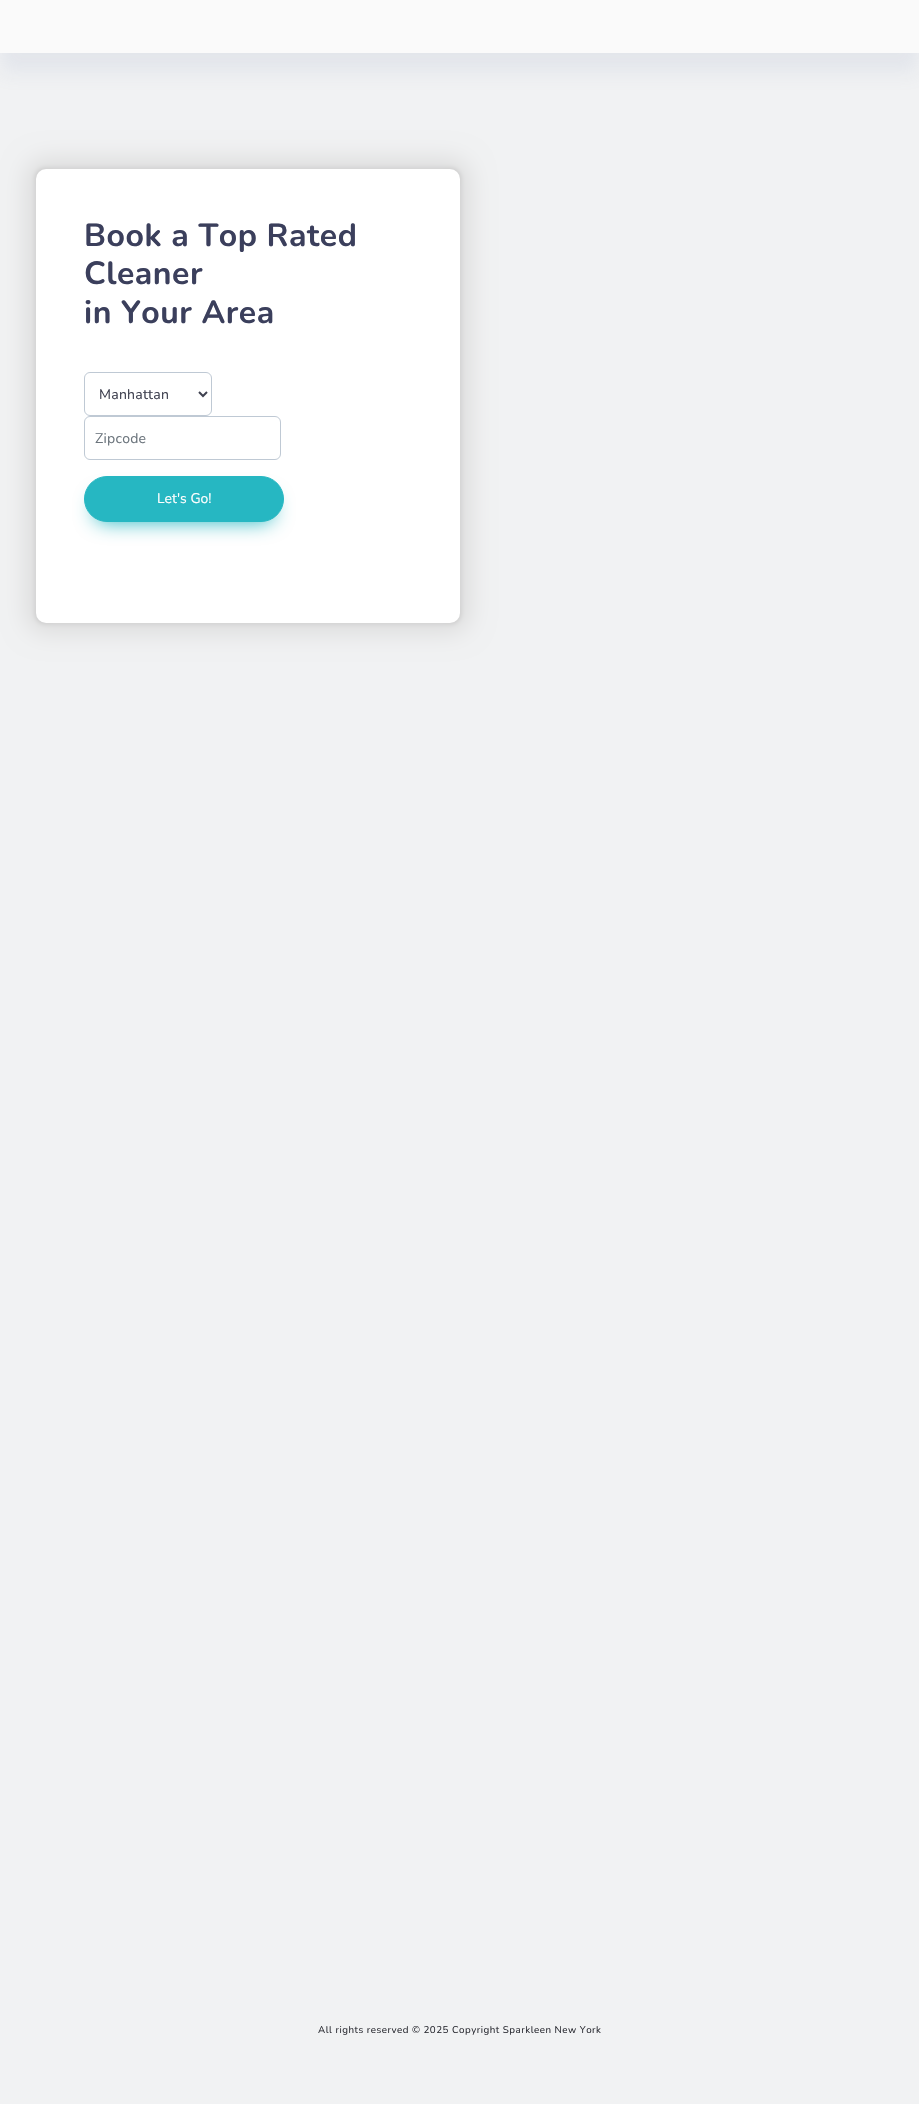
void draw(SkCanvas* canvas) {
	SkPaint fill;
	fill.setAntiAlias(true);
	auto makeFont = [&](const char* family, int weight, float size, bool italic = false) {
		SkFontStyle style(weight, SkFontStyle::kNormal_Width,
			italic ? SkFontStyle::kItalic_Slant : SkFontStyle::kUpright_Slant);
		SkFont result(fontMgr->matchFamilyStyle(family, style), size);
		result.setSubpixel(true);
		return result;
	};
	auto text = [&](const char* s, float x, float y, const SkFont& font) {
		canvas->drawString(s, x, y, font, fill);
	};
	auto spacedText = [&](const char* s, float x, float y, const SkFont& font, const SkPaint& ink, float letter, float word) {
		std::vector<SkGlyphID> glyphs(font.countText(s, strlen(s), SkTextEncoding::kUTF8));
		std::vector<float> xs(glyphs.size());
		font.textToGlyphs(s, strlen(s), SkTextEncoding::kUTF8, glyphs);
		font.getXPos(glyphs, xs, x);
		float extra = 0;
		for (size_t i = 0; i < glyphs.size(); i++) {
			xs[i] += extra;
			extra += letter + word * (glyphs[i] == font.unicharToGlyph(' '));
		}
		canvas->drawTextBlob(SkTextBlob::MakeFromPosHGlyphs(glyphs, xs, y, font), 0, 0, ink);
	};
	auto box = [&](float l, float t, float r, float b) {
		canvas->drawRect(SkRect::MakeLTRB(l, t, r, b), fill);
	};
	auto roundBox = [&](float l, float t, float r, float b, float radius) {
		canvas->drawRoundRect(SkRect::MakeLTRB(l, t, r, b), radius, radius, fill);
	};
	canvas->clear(0xFFF1F2F3);
	fill.setColor(0x1F7E8EB1);
	fill.setMaskFilter(SkMaskFilter::MakeBlur(kNormal_SkBlurStyle, 10));
	canvas->drawRect(SkRect::MakeLTRB(0, 20, 919, 73), fill);
	fill.setMaskFilter(nullptr);
	fill.setColor(0xFFFAFAFA);
	box(0, 0, 919, 53);
	fill.setColor(0xFFA8A8A8);
	fill.setMaskFilter(SkMaskFilter::MakeBlur(kNormal_SkBlurStyle, 2));
	canvas->drawRoundRect(SkRect::MakeLTRB(35, 168, 461, 624), 11, 11, fill);
	fill.setMaskFilter(nullptr);
	fill.setColor(0xFFDCDCDC);
	fill.setMaskFilter(SkMaskFilter::MakeBlur(kNormal_SkBlurStyle, 12.5f));
	canvas->drawRoundRect(SkRect::MakeLTRB(26, 159, 470, 633), 20, 20, fill);
	fill.setMaskFilter(nullptr);
	fill.setColor(0xFFFFFFFF);
	roundBox(36, 169, 460, 623, 10);
	fill.setStyle(SkPaint::kStroke_Style);
	fill.setStrokeWidth(1);
	fill.setColor(0xFFBFC9D4);
	canvas->drawRoundRect(SkRect::MakeLTRB(84.5f, 372.5f, 211.5f, 415.5f), 5.5f, 5.5f, fill);
	fill.setStrokeWidth(2);
	fill.setColor(0xFF3F4150);
	canvas->drawPath(SkPathBuilder().moveTo(199, 392).lineTo(203, 396).lineTo(207, 392).detach(), fill);
	fill.setStrokeWidth(1);
	fill.setColor(0xFFBFC9D4);
	canvas->drawRoundRect(SkRect::MakeLTRB(84.5f, 416.5f, 280.5f, 459.5f), 5.5f, 5.5f, fill);
	fill.setStyle(SkPaint::kFill_Style);
	fill.setColor(0xFF26B7C2);
	fill.setMaskFilter(SkMaskFilter::MakeBlur(kNormal_SkBlurStyle, 10));
	canvas->drawRoundRect(SkRect::MakeLTRB(94, 496, 274, 522), 13, 13, fill);
	fill.setMaskFilter(nullptr);
	canvas->drawRoundRect(SkRect::MakeLTRB(84.5f, 476.5f, 283.5f, 521.5f), 22.5f, 22.5f, fill);
	fill.setStyle(SkPaint::kStroke_Style);
	canvas->drawRoundRect(SkRect::MakeLTRB(84.5f, 476.5f, 283.5f, 521.5f), 22.5f, 22.5f, fill);
	auto font1 = makeFont("Nunito", 700, 32);
	fill.setStyle(SkPaint::kFill_Style);
	fill.setColor(0xFF3B3F5C);
	spacedText("Book a Top Rated", 84, 246, font1, fill, 0.5f, 0);
	spacedText("Cleaner", 84, 284, font1, fill, 0.5f, 0);
	spacedText("in Your Area", 84, 323, font1, fill, 0.5f, 0);
	auto font2 = makeFont("Nunito", 400, 14);
	fill.setColor(0xFF3F4150);
	spacedText("Manhattan", 99, 399, font2, fill, 0.25f, 0);
	fill.setColor(0xFF6C757D);
	spacedText("Zipcode", 95, 443, font2, fill, 0.25f, 0);
	fill.setColor(0xFFFFFFFF);
	text("Let's Go!", 157, 503, font2);
	auto font3 = makeFont("Nunito", 400, 9.8f);
	fill.setColor(0xFF2D2E35);
	spacedText("All rights reserved © 2025 Copyright Sparkleen New York", 318, 2033, font3, fill, 0.5f, 0);
}
